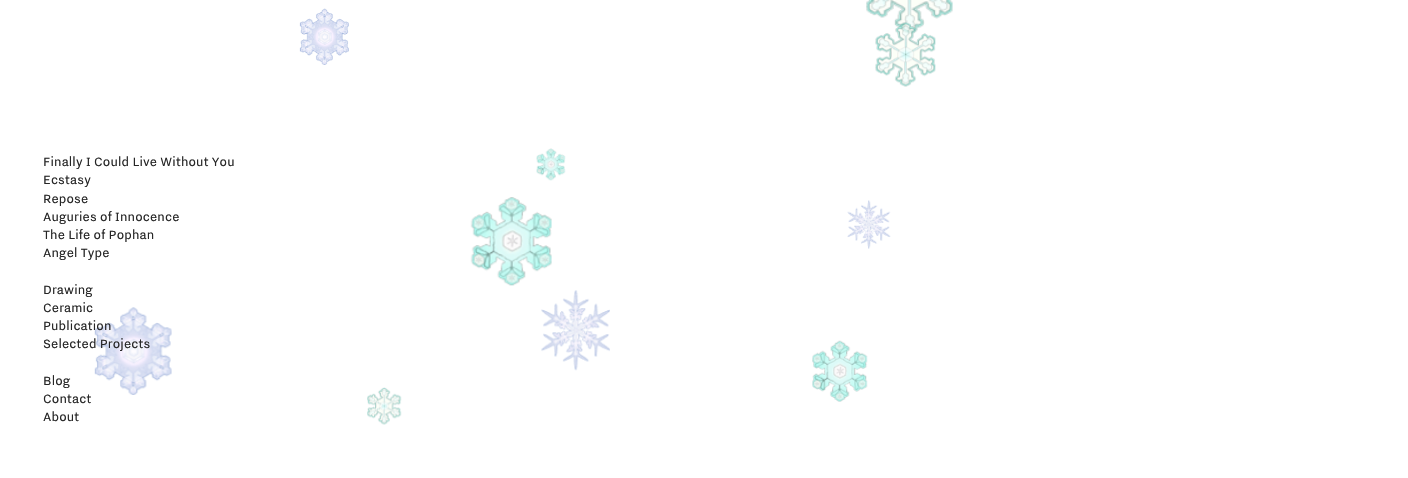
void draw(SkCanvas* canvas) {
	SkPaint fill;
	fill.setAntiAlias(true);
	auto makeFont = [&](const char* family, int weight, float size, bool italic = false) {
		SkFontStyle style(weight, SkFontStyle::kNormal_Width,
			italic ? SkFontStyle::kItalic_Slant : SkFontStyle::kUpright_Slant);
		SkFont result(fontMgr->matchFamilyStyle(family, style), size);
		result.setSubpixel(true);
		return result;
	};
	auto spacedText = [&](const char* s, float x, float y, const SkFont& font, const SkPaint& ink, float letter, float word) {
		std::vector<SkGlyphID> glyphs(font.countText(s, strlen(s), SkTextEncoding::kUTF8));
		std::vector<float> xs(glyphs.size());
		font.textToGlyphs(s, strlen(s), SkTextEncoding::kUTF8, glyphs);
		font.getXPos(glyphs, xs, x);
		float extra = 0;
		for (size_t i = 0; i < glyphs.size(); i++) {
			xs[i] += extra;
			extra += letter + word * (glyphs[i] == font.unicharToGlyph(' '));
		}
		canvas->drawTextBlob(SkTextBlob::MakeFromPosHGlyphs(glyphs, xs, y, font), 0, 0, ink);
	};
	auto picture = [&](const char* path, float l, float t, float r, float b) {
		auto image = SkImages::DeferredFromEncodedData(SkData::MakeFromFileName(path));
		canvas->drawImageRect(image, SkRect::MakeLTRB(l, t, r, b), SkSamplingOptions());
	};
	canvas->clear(0xFFFFFFFF);
	picture("image0.png", 299, 8, 349, 65);
	picture("image1.png", 866, 0, 953, 34);
	picture("image2.png", 875, 22, 936, 87);
	picture("image3.png", 536, 148, 566, 181);
	picture("image4.png", 470, 197, 552, 286);
	picture("image5.png", 847, 200, 891, 249);
	picture("image6.png", 94, 307, 172, 395);
	picture("image7.png", 541, 290, 610, 371);
	picture("image8.png", 812, 340, 868, 402);
	picture("image9.png", 367, 387, 402, 425);
	auto font1 = makeFont("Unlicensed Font", 400, 15.2f);
	fill.setColor(0xFF262626);
	spacedText("Finally I Could Live Without You", 43, 166, font1, fill, 0.15f, 0);
	spacedText("Ecstasy", 43, 184, font1, fill, 0.15f, 0);
	spacedText("Repose", 43, 203, font1, fill, 0.15f, 0);
	spacedText("Auguries of Innocence", 43, 221, font1, fill, 0.15f, 0);
	spacedText("The Life of Pophan", 43, 239, font1, fill, 0.15f, 0);
	spacedText("Angel Type", 43, 257, font1, fill, 0.15f, 0);
	spacedText("Drawing", 43, 294, font1, fill, 0.15f, 0);
	spacedText("Ceramic", 43, 312, font1, fill, 0.15f, 0);
	spacedText("Publication", 43, 330, font1, fill, 0.15f, 0);
	spacedText("Selected Projects", 43, 348, font1, fill, 0.15f, 0);
	spacedText("Blog", 43, 385, font1, fill, 0.15f, 0);
	spacedText("Contact", 43, 403, font1, fill, 0.15f, 0);
	spacedText("About", 43, 421, font1, fill, 0.15f, 0);
}
